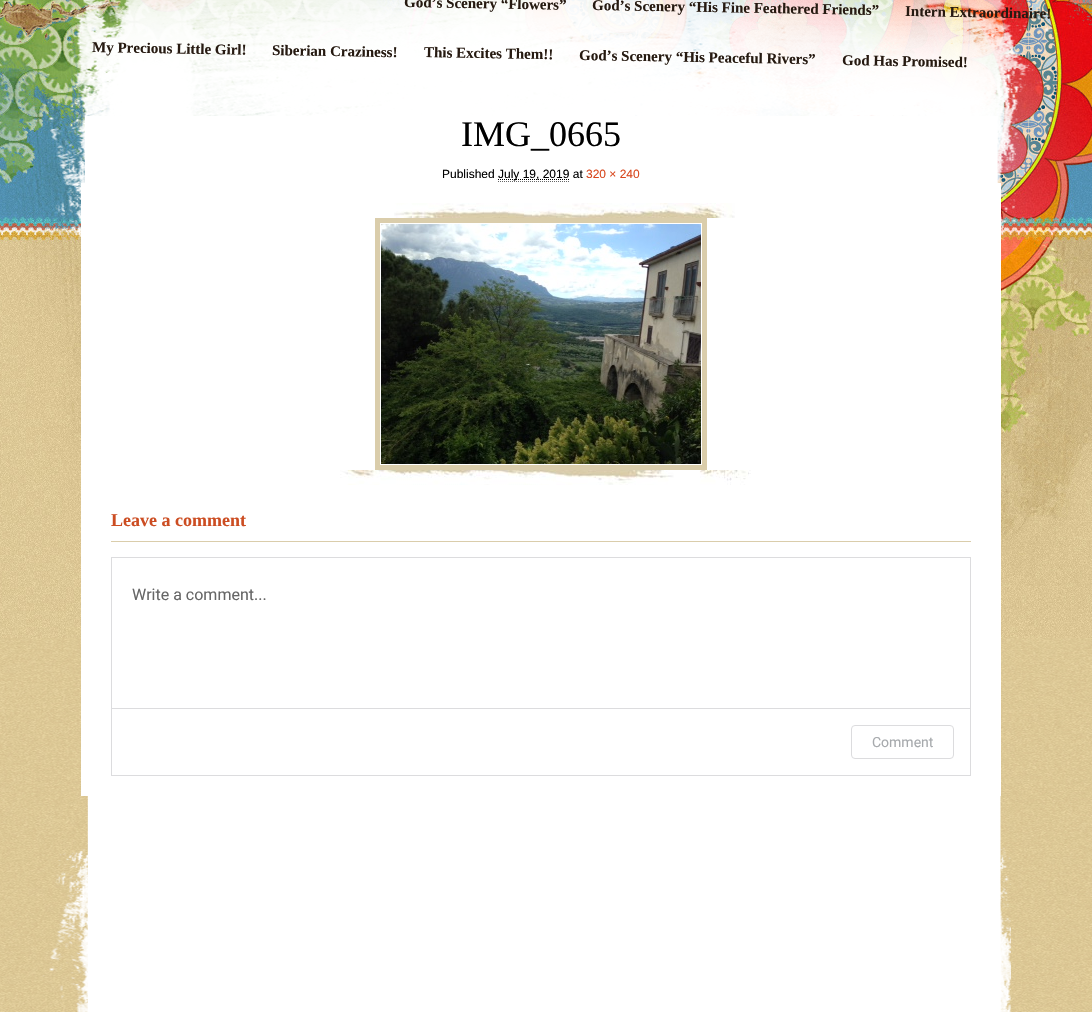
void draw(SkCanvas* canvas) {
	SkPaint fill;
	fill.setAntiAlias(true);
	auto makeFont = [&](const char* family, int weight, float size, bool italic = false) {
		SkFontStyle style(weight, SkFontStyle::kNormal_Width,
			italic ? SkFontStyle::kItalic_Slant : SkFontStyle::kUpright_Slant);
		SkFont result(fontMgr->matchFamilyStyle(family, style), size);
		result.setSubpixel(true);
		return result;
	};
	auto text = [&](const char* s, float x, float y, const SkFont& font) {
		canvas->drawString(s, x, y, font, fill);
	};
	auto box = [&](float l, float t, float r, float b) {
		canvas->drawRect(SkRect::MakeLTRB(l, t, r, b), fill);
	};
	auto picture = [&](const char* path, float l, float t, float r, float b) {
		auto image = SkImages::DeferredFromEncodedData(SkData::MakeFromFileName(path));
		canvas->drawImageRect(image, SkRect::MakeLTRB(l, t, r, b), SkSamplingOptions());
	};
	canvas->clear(0xFFFFFFFF);
	picture("image0.png", 0, 638, 1092, 1012);
	picture("image1.png", 0, 0, 1092, 638);
	picture("image2.png", 42, 0, 1058, 241);
	fill.setColor(0xFFFFFFFF);
	box(81, 183, 1001, 796);
	fill.setStyle(SkPaint::kStroke_Style);
	fill.setStrokeWidth(1);
	fill.setColor(0xFF666666);
	fill.setPathEffect(SkDashPathEffect::Make({{1, 1}}, 0));
	canvas->drawPath(SkPathBuilder().moveTo(498, 181.5f).lineTo(570, 181.5f).detach(), fill);
	fill.setPathEffect(nullptr);
	fill.setColor(0xFF000000);
	fill.setPathEffect(SkDashPathEffect::Make({{1, 1}}, 0));
	canvas->drawPath(SkPathBuilder().moveTo(498, 179.5f).lineTo(569.5f, 179.5f).detach(), fill);
	fill.setPathEffect(nullptr);
	picture("image3.png", 340, 470, 751, 485);
	picture("image4.png", 394, 203, 735, 218);
	fill.setStrokeWidth(5);
	fill.setColor(0xFFDACDAB);
	canvas->drawRect(SkRect::MakeLTRB(377.5f, 220.5f, 704.5f, 467.5f), fill);
	picture("image5.png", 381, 224, 701, 464);
	fill.setStyle(SkPaint::kFill_Style);
	box(111, 541, 971, 542);
	fill.setStyle(SkPaint::kStroke_Style);
	fill.setStrokeWidth(1);
	fill.setColor(0xFFDCDCDE);
	canvas->drawRect(SkRect::MakeLTRB(111.5f, 557.5f, 970.5f, 775.5f), fill);
	fill.setStyle(SkPaint::kFill_Style);
	box(112, 708, 970, 709);
	fill.setStyle(SkPaint::kStroke_Style);
	canvas->drawRoundRect(SkRect::MakeLTRB(851.5f, 725.5f, 953.5f, 758.5f), 3.5f, 3.5f, fill);
	picture("image6.png", 42, 796, 1011, 1012);
	auto font1 = makeFont("Liberation Serif", 700, 15);
	fill.setStyle(SkPaint::kFill_Style);
	fill.setColor(0xFF261A11);
	canvas->save();
	canvas->rotate(1, 404, 7);
	text("God’s Scenery “Flowers”", 404, 7, font1);
	canvas->restore();
	canvas->save();
	canvas->rotate(1, 592, 10);
	text("God’s Scenery “His Fine Feathered Friends”", 592, 10, font1);
	canvas->restore();
	canvas->save();
	canvas->rotate(1, 905, 16);
	text("Intern Extraordinaire!", 905, 16, font1);
	canvas->restore();
	canvas->save();
	canvas->rotate(1, 92, 52);
	text("My Precious Little Girl!", 92, 52, font1);
	canvas->restore();
	canvas->save();
	canvas->rotate(1, 272, 55);
	text("Siberian Craziness!", 272, 55, font1);
	canvas->restore();
	canvas->save();
	canvas->rotate(1, 424, 57);
	text("This Excites Them!!", 424, 57, font1);
	canvas->restore();
	canvas->save();
	canvas->rotate(1, 579, 60);
	text("God’s Scenery “His Peaceful Rivers”", 579, 60, font1);
	canvas->restore();
	canvas->save();
	canvas->rotate(1, 842, 65);
	text("God Has Promised!", 842, 65, font1);
	canvas->restore();
	auto font2 = makeFont("Liberation Serif", 400, 36);
	fill.setColor(0xFF000000);
	text("IMG_0665", 461, 146, font2);
	auto font3 = makeFont("Liberation Sans", 400, 12);
	text("Published", 442, 178, font3);
	text("July 19, 2019 at", 498, 178, font3);
	fill.setColor(0xFFD8471D);
	text("320 × 240", 586, 178, font3);
	auto font4 = makeFont("Liberation Serif", 700, 18);
	fill.setColor(0xFFCC4D22);
	text("Leave a comment", 111, 526, font4);
	auto font5 = makeFont("Roboto", 400, 16);
	fill.setColor(0xFF666666);
	text("Write a comment...", 132, 600, font5);
	auto font6 = makeFont("Roboto", 400, 14);
	fill.setColor(0xFFA7AAAD);
	text("Comment", 872, 747, font6);
}
